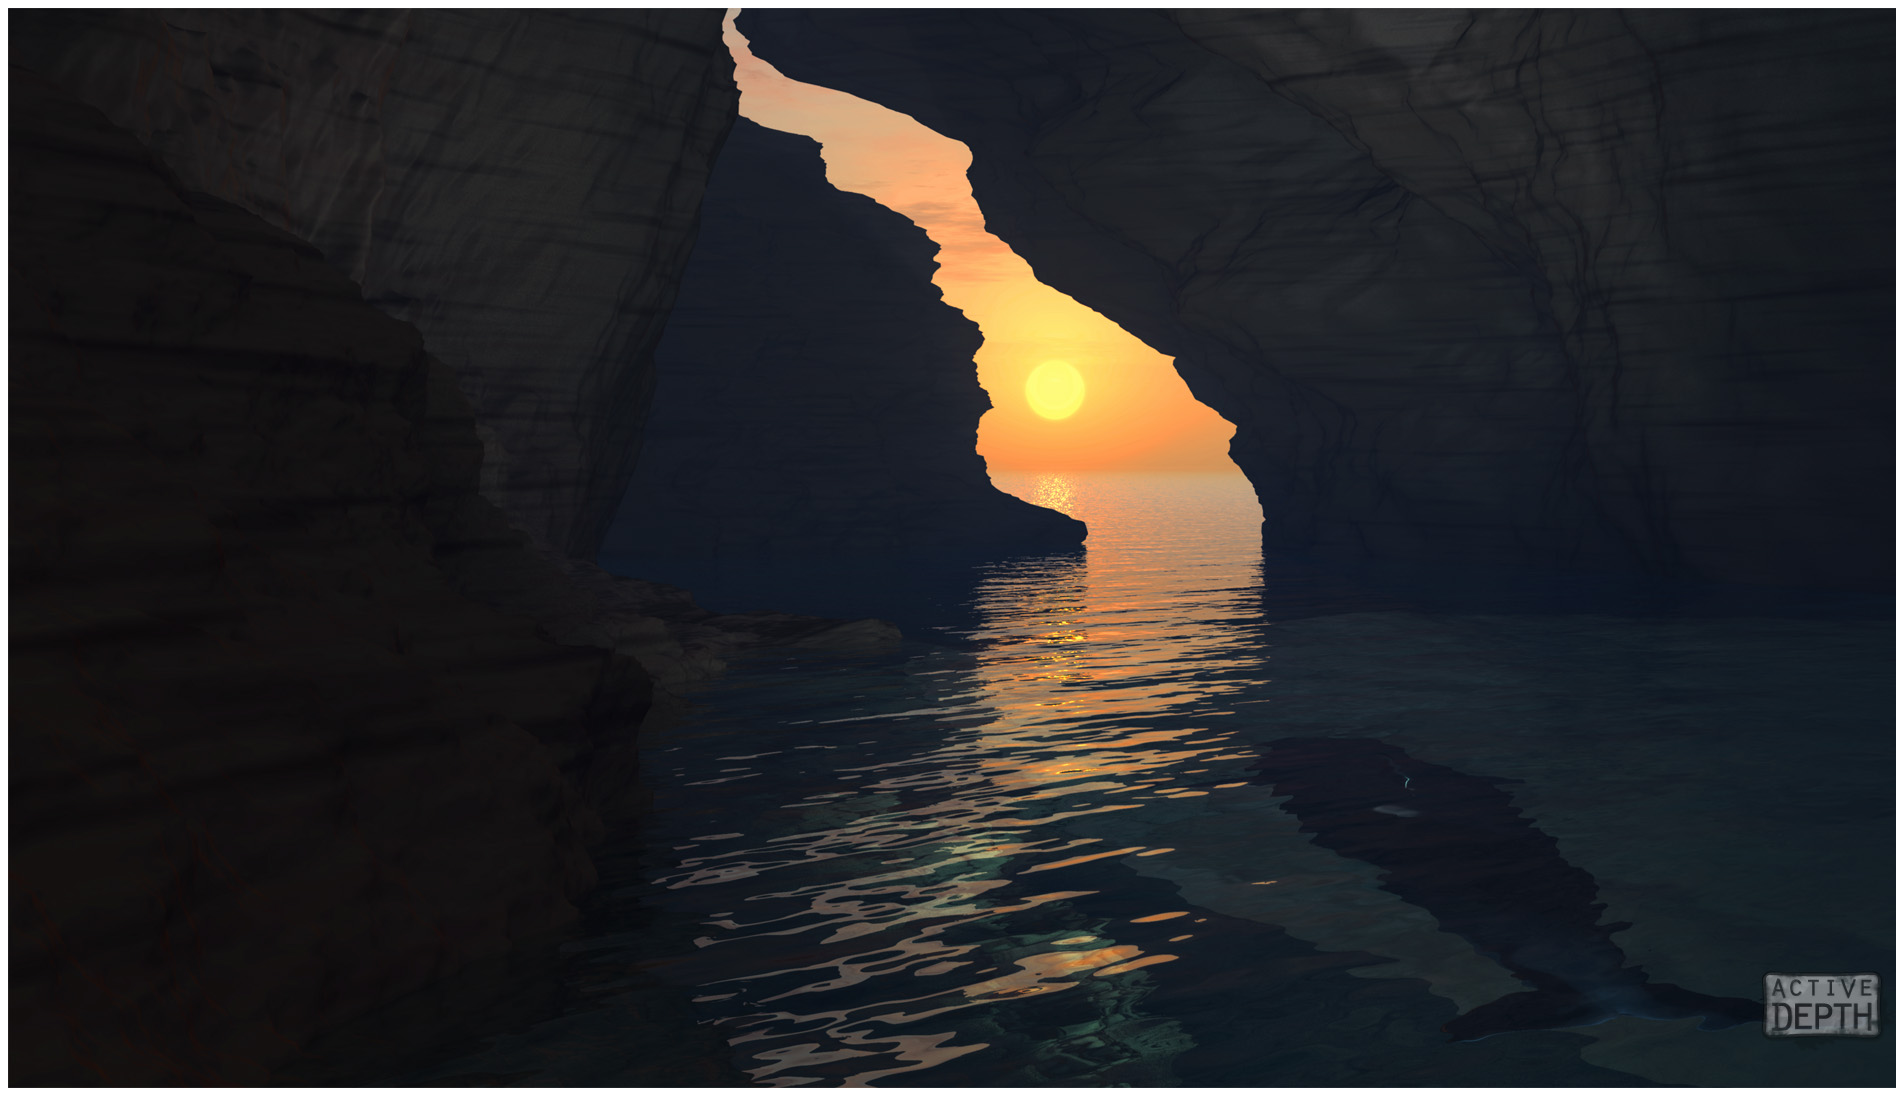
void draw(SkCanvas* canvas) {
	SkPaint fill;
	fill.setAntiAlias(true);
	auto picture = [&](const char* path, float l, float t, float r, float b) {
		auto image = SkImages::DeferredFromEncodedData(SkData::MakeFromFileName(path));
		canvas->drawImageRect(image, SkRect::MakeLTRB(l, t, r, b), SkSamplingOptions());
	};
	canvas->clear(0xFFFFFFFF);
	picture("image0.png", 8, 8, 1896, 1088);
}
